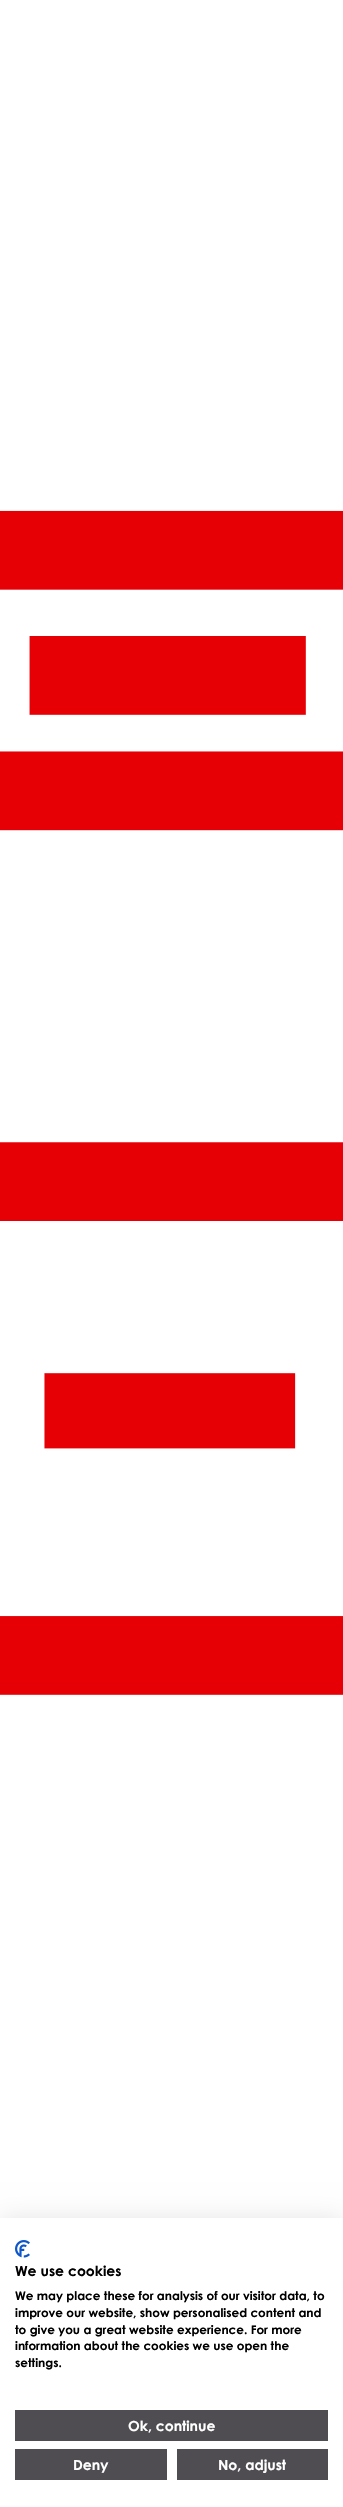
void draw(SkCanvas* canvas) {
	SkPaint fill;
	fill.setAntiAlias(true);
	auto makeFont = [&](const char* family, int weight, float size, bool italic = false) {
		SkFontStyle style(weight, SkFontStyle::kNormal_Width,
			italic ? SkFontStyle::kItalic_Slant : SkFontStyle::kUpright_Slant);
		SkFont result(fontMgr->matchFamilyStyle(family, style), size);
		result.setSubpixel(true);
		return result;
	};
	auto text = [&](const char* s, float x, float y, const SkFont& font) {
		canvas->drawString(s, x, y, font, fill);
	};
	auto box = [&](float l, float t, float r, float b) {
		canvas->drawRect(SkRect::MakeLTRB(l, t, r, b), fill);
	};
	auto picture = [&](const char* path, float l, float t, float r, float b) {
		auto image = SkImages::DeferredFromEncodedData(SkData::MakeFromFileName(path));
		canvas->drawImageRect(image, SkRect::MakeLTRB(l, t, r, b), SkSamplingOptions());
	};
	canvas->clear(0xFFFFFFFF);
	picture("image0.png", 0, 510, 343, 1695);
	fill.setColor(0x1A000000);
	fill.setMaskFilter(SkMaskFilter::MakeBlur(kNormal_SkBlurStyle, 12));
	canvas->drawRect(SkRect::MakeLTRB(0, 2218, 343, 2507), fill);
	fill.setMaskFilter(nullptr);
	fill.setColor(0xFFFFFFFF);
	box(0, 2218, 343, 2507);
	picture("image1.png", 15, 2240, 30, 2258);
	fill.setColor(0xFF4F4D52);
	box(15, 2410, 328, 2441);
	box(15, 2449, 167, 2480);
	box(177, 2449, 328, 2480);
	auto font1 = makeFont("Century Gothic", 700, 14);
	fill.setColor(0xFF000000);
	text("We use cookies", 15, 2276, font1);
	auto font2 = makeFont("Century Gothic", 700, 12);
	text("We may place these for analysis of our visitor data, to", 15, 2300, font2);
	text("improve our website, show personalised content and", 15, 2317, font2);
	text("to give you a great website experience. For more", 15, 2334, font2);
	text("information about the cookies we use open the", 15, 2350, font2);
	text("settings.", 15, 2367, font2);
	fill.setColor(0xFFFFFFFF);
	text("Ok, continue", 128, 2431, font1);
	text("Deny", 73, 2470, font1);
	text("No, adjust", 218, 2470, font1);
}
